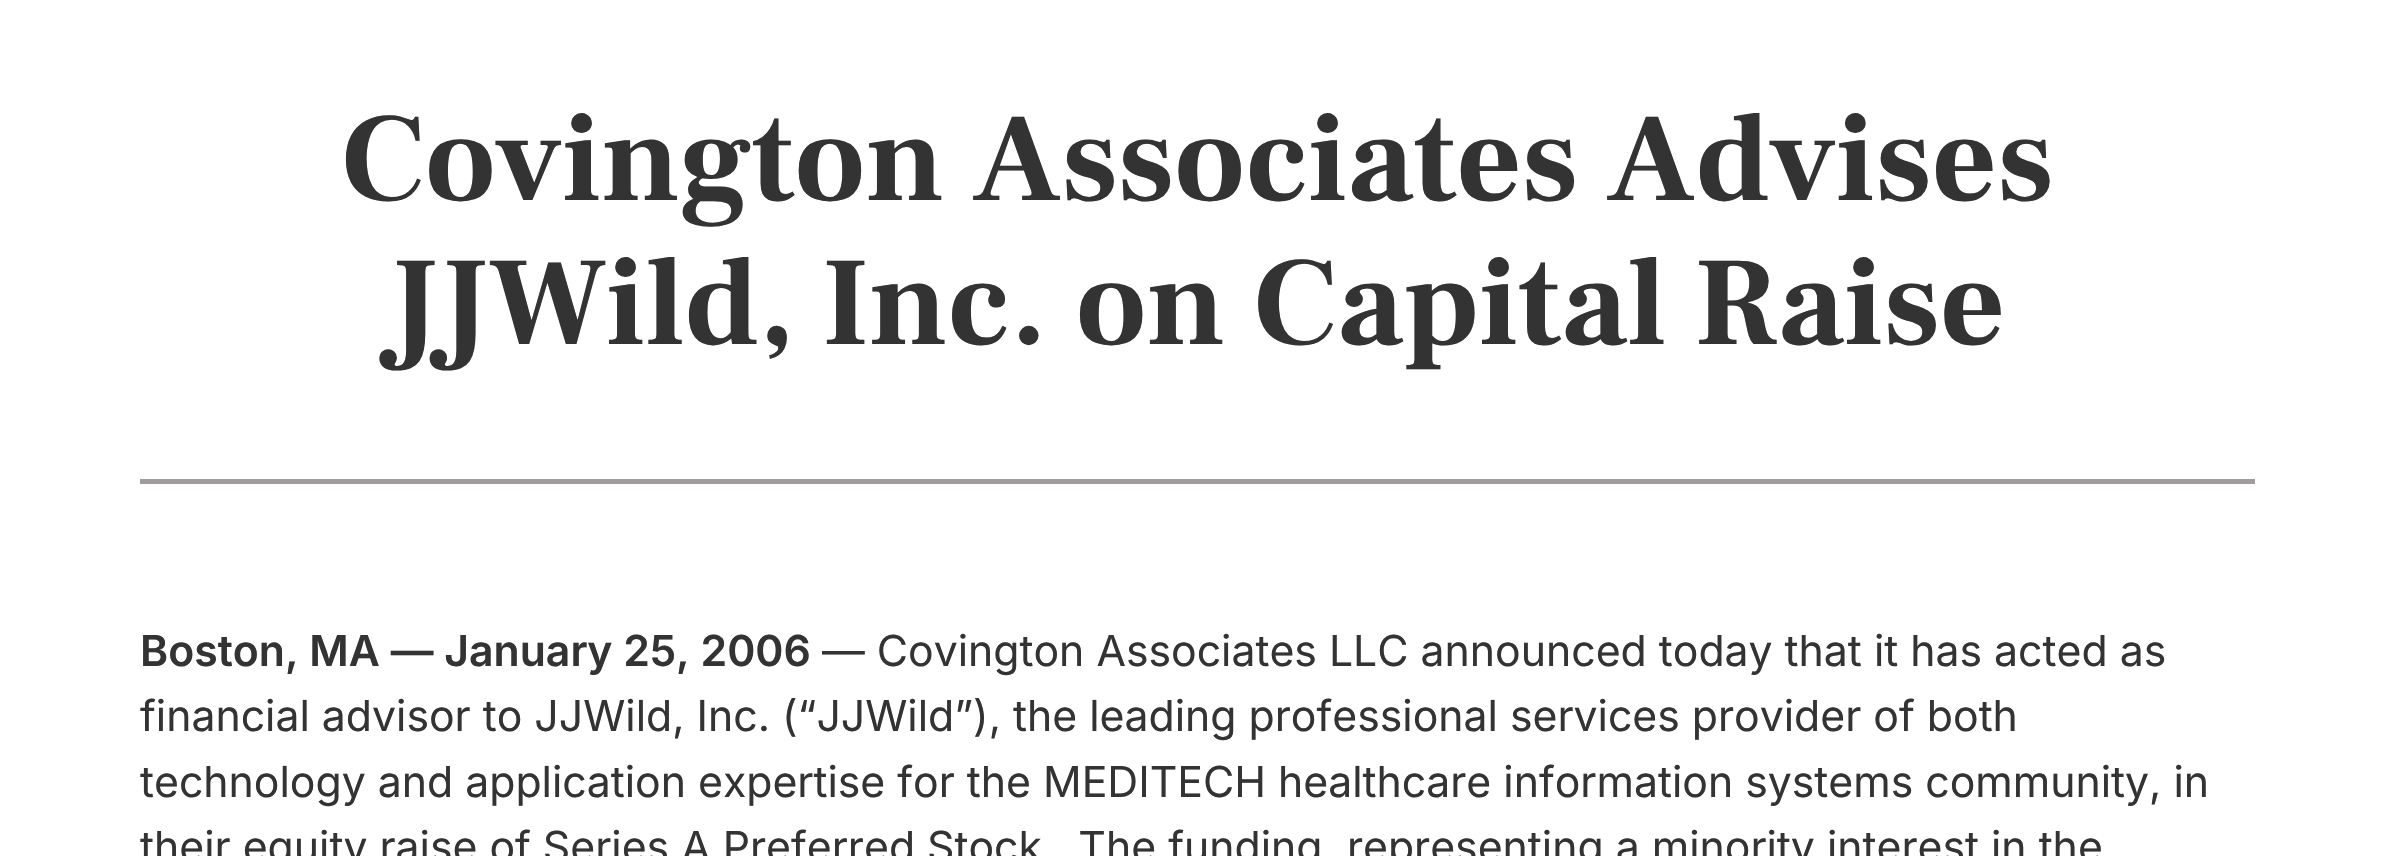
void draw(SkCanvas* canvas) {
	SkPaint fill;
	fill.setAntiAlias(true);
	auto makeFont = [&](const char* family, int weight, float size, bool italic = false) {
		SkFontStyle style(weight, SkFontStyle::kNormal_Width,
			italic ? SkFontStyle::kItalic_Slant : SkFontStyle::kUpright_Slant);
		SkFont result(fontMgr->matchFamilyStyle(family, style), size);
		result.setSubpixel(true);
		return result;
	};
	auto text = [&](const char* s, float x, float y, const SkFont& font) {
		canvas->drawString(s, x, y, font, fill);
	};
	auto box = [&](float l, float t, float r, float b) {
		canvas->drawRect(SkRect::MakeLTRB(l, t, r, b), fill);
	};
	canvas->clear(0xFFFFFFFF);
	fill.setColor(0xFFA09C9C);
	box(140, 479, 2255, 484);
	auto font1 = makeFont("Frank Ruhl Libre", 700, 126);
	fill.setColor(0xFF333333);
	text("Covington Associates Advises", 341, 200, font1);
	text("JJWild, Inc. on Capital Raise", 388, 344, font1);
	auto font2 = makeFont("Inter", 600, 42.75f);
	text("Boston, MA — January 25, 2006", 140, 666, font2);
	auto font3 = makeFont("Inter", 400, 42.75f);
	text("— Covington Associates LLC announced today that it has acted as", 822, 666, font3);
	text("financial advisor to JJWild, Inc. (“JJWild”), the leading professional services provider of both", 140, 731, font3);
	text("technology and application expertise for the MEDITECH healthcare information systems community, in", 140, 797, font3);
	text("their equity raise of Series A Preferred Stock.  The funding, representing a minority interest in the", 140, 862, font3);
}
